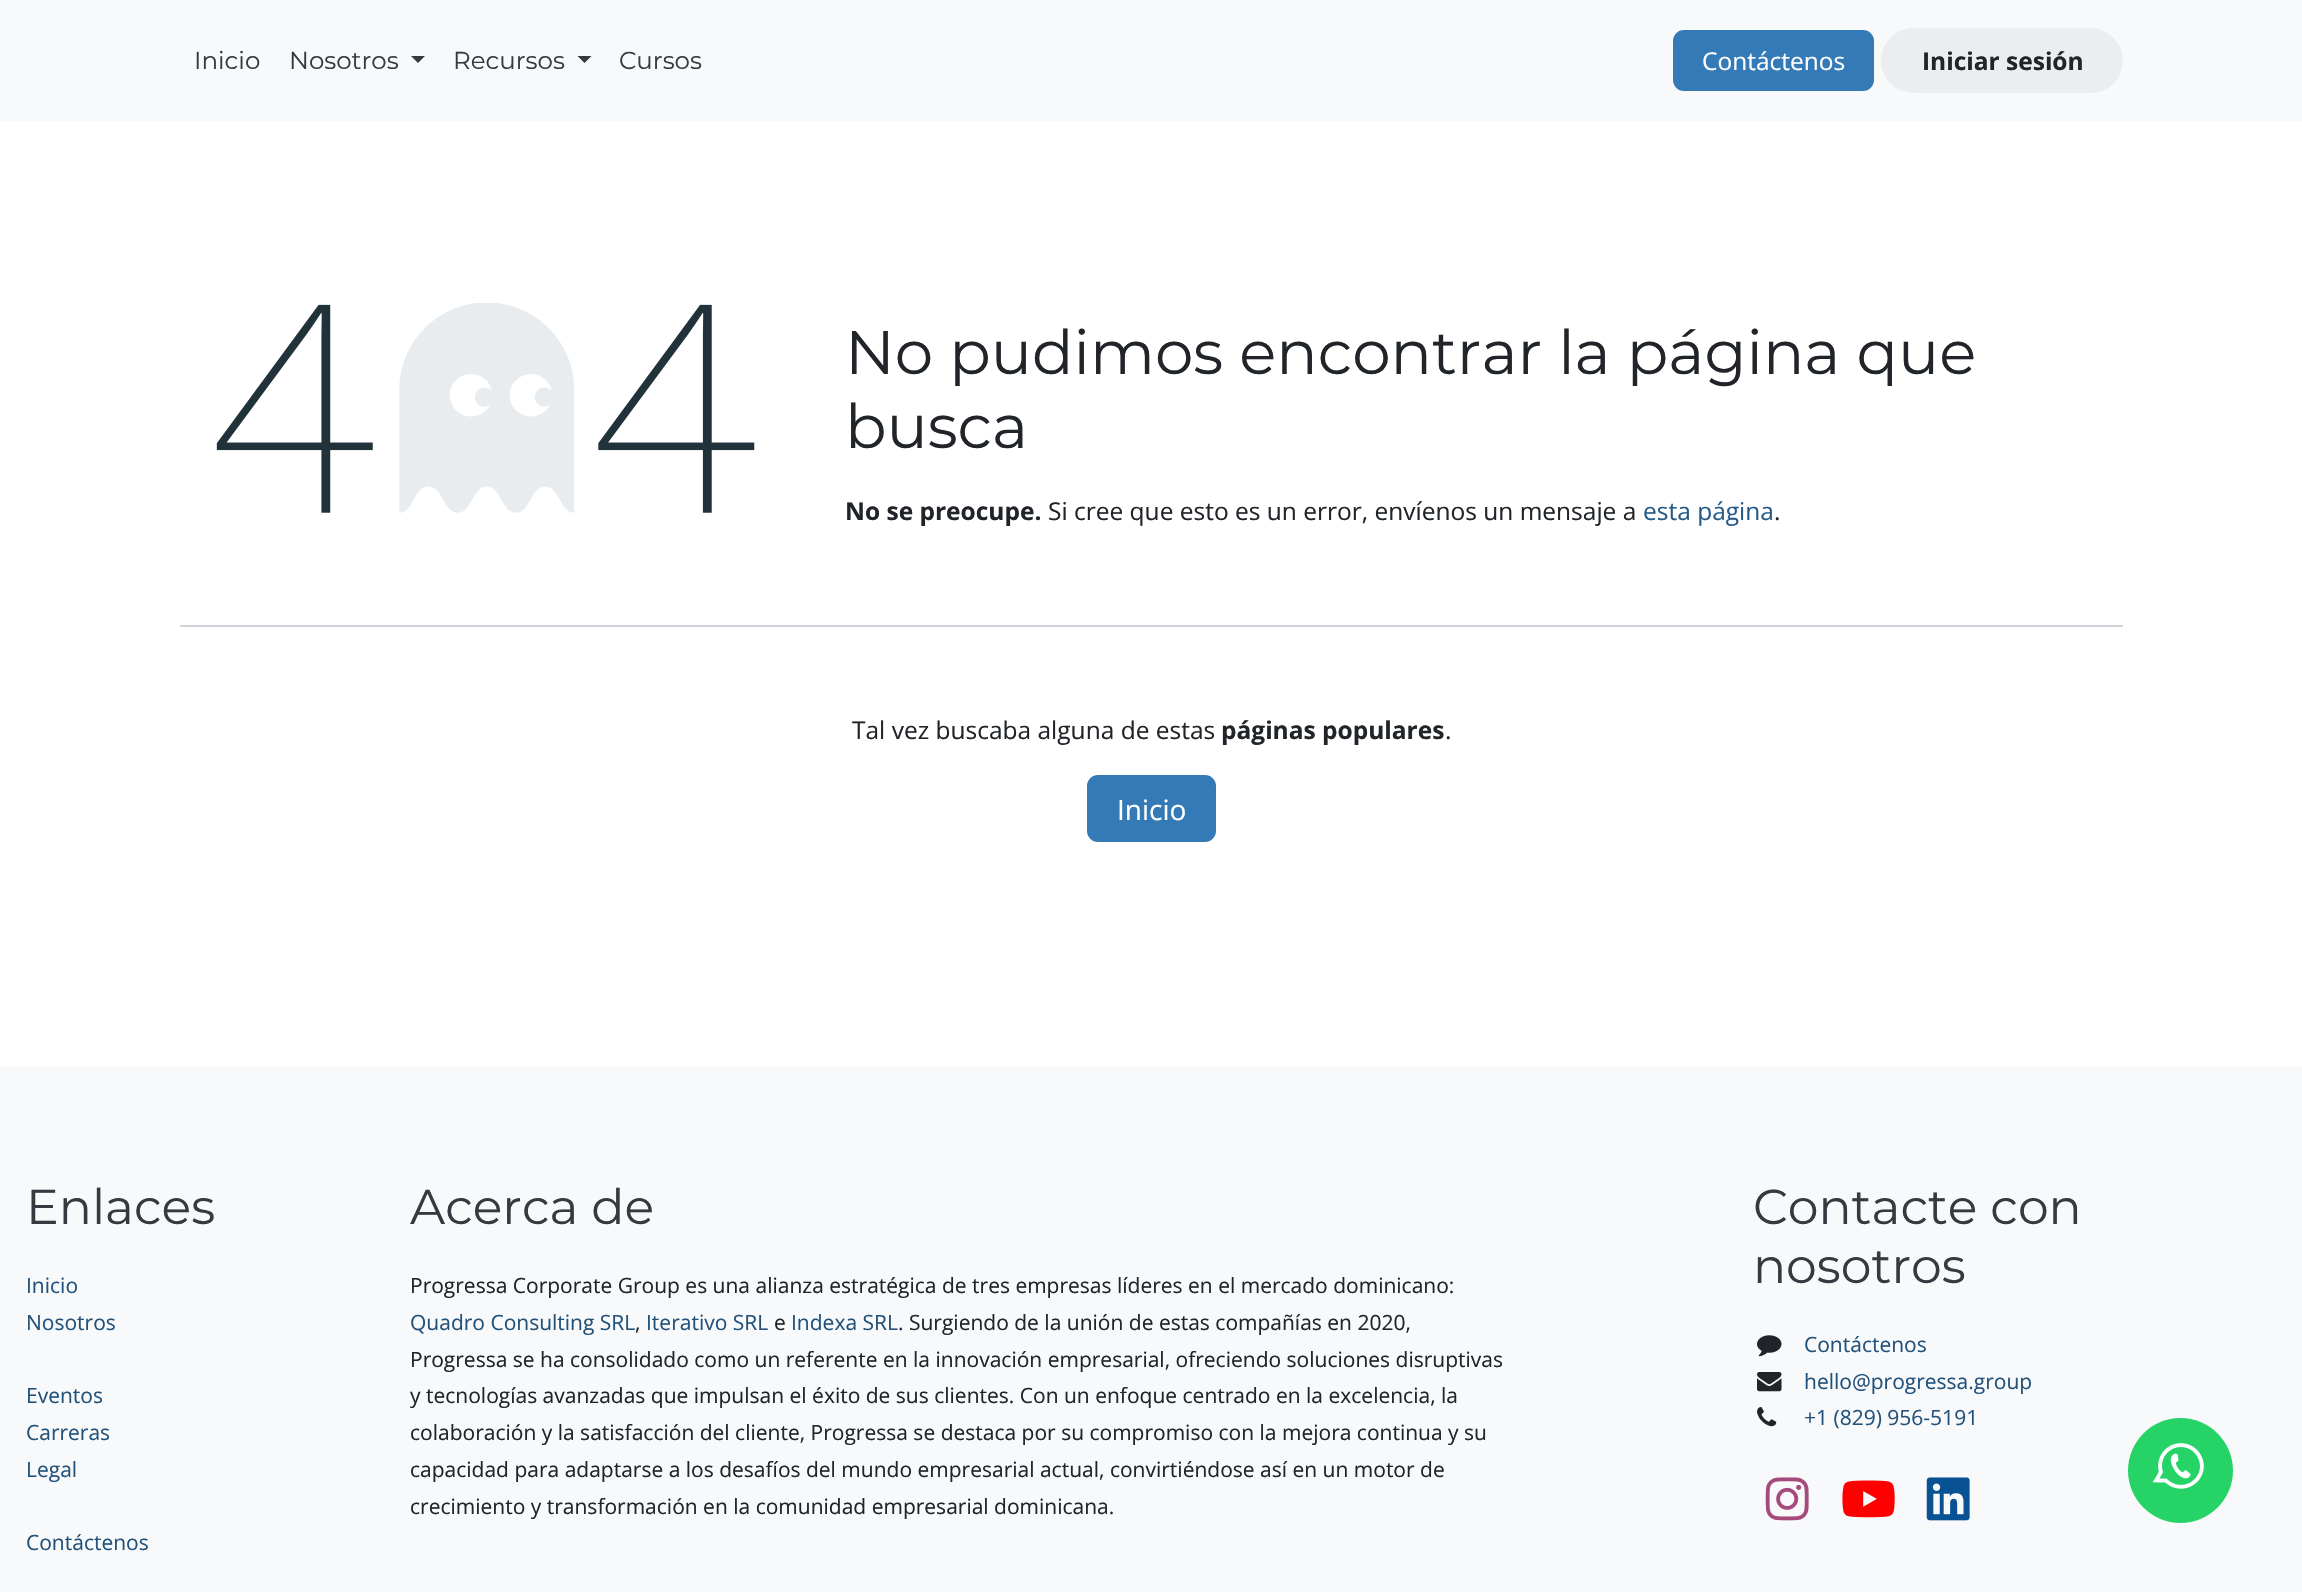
void draw(SkCanvas* canvas) {
	SkPaint fill;
	fill.setAntiAlias(true);
	auto makeFont = [&](const char* family, int weight, float size, bool italic = false) {
		SkFontStyle style(weight, SkFontStyle::kNormal_Width,
			italic ? SkFontStyle::kItalic_Slant : SkFontStyle::kUpright_Slant);
		SkFont result(fontMgr->matchFamilyStyle(family, style), size);
		result.setSubpixel(true);
		return result;
	};
	auto text = [&](const char* s, float x, float y, const SkFont& font) {
		canvas->drawString(s, x, y, font, fill);
	};
	auto box = [&](float l, float t, float r, float b) {
		canvas->drawRect(SkRect::MakeLTRB(l, t, r, b), fill);
	};
	auto roundBox = [&](float l, float t, float r, float b, float radius) {
		canvas->drawRoundRect(SkRect::MakeLTRB(l, t, r, b), radius, radius, fill);
	};
	auto picture = [&](const char* path, float l, float t, float r, float b) {
		auto image = SkImages::DeferredFromEncodedData(SkData::MakeFromFileName(path));
		canvas->drawImageRect(image, SkRect::MakeLTRB(l, t, r, b), SkSamplingOptions());
	};
	canvas->clear(0xFFFFFFFF);
	fill.setColor(0xFFF8F9FA);
	box(0, 0, 2302, 121);
	fill.setColor(0xFF343A40);
	canvas->drawPath(SkPathBuilder().moveTo(411, 56).lineTo(425, 56).lineTo(418, 63).close().detach(), fill);
	canvas->drawPath(SkPathBuilder().moveTo(577.5f, 56).lineTo(591.5f, 56).lineTo(584.5f, 63).close().detach(), fill);
	fill.setColor(0xFF337AB7);
	canvas->drawRoundRect(SkRect::MakeLTRB(1674, 31, 1873, 90), 10, 10, fill);
	fill.setStyle(SkPaint::kStroke_Style);
	fill.setStrokeWidth(2);
	canvas->drawRoundRect(SkRect::MakeLTRB(1674, 31, 1873, 90), 10, 10, fill);
	fill.setStyle(SkPaint::kFill_Style);
	fill.setColor(0xFFECEDEE);
	roundBox(1881, 28, 2123, 93, 32.5f);
	picture("image0.png", 216, 303, 755, 513);
	fill.setColor(0xFFCED4DA);
	box(180, 625, 2123, 627);
	fill.setColor(0xFF337AB7);
	canvas->drawRoundRect(SkRect::MakeLTRB(1088, 776, 1215, 841), 10, 10, fill);
	fill.setStyle(SkPaint::kStroke_Style);
	canvas->drawRoundRect(SkRect::MakeLTRB(1088, 776, 1215, 841), 10, 10, fill);
	fill.setStyle(SkPaint::kFill_Style);
	fill.setColor(0xFFF8F9FA);
	box(0, 1066, 2302, 1592);
	picture("image1.png", 1757, 1335, 1782, 1357);
	picture("image2.png", 1757, 1372, 1782, 1392);
	picture("image3.png", 1757, 1407, 1777, 1427);
	picture("image4.png", 1765, 1477, 1809, 1521);
	picture("image5.png", 1842, 1480, 1895, 1518);
	picture("image6.png", 1926, 1477, 1970, 1521);
	fill.setColor(0xFF25D366);
	canvas->drawCircle(2180.5f, 1470.5f, 52.5f, fill);
	picture("image7.png", 2152, 1443, 2204, 1489);
	auto font1 = makeFont("Montserrat", 400, 24.5f);
	fill.setColor(0xFF343A40);
	text("Inicio", 194, 69, font1);
	text("Nosotros", 289, 69, font1);
	text("Recursos", 453, 69, font1);
	text("Cursos", 619, 69, font1);
	auto font2 = makeFont("Open Sans", 400, 24.5f);
	fill.setColor(0xFFFFFFFF);
	text("Contáctenos", 1702, 70, font2);
	auto font3 = makeFont("Open Sans", 700, 24.5f);
	fill.setColor(0xFF212529);
	text("Iniciar sesión", 1922, 70, font3);
	auto font4 = makeFont("Montserrat", 400, 61.25f);
	text("No pudimos encontrar la página que", 845, 374, font4);
	text("busca", 845, 448, font4);
	text("No se preocupe.", 845, 520, font3);
	text("Si cree que esto es un error, envíenos un mensaje a", 1048, 520, font2);
	fill.setColor(0xFF265A87);
	text("esta página", 1643, 520, font2);
	fill.setColor(0xFF212529);
	text(".", 1774, 520, font2);
	text("Tal vez buscaba alguna de estas", 852, 739, font2);
	text("páginas populares", 1221, 739, font3);
	text(".", 1445, 739, font2);
	auto font5 = makeFont("Open Sans", 400, 28);
	fill.setColor(0xFFFFFFFF);
	text("Inicio", 1117, 820, font5);
	auto font6 = makeFont("Montserrat", 400, 49);
	fill.setColor(0xFF343A40);
	text("Enlaces", 26, 1224, font6);
	auto font7 = makeFont("Open Sans", 400, 21);
	fill.setColor(0xFF22527B);
	text("Inicio", 26, 1293, font7);
	text("Nosotros", 26, 1330, font7);
	text("Eventos", 26, 1403, font7);
	text("Carreras", 26, 1440, font7);
	text("Legal", 26, 1477, font7);
	text("Contáctenos", 26, 1550, font7);
	fill.setColor(0xFF343A40);
	text("Acerca de", 410, 1224, font6);
	fill.setColor(0xFF212529);
	text("Progressa Corporate Group es una alianza estratégica de tres empresas líderes en el mercado dominicano:", 410, 1293, font7);
	fill.setColor(0xFF22527B);
	text("Quadro Consulting SRL", 410, 1330, font7);
	fill.setColor(0xFF212529);
	text(",", 635, 1330, font7);
	fill.setColor(0xFF22527B);
	text("Iterativo SRL", 646, 1330, font7);
	fill.setColor(0xFF212529);
	text("e", 774, 1330, font7);
	fill.setColor(0xFF22527B);
	text("Indexa SRL", 791, 1330, font7);
	fill.setColor(0xFF212529);
	text(". Surgiendo de la unión de estas compañías en 2020,", 898, 1330, font7);
	text("Progressa se ha consolidado como un referente en la innovación empresarial, ofreciendo soluciones disruptivas", 410, 1367, font7);
	text("y tecnologías avanzadas que impulsan el éxito de sus clientes. Con un enfoque centrado en la excelencia, la", 410, 1403, font7);
	text("colaboración y la satisfacción del cliente, Progressa se destaca por su compromiso con la mejora continua y su", 410, 1440, font7);
	text("capacidad para adaptarse a los desafíos del mundo empresarial actual, convirtiéndose así en un motor de", 410, 1477, font7);
	text("crecimiento y transformación en la comunidad empresarial dominicana.", 410, 1514, font7);
	fill.setColor(0xFF343A40);
	text("Contacte con", 1753, 1224, font6);
	text("nosotros", 1753, 1283, font6);
	fill.setColor(0xFF22527B);
	text("Contáctenos", 1804, 1352, font7);
	text("hello@progressa.group", 1804, 1389, font7);
	text("+1 (829) 956-5191", 1804, 1425, font7);
}
